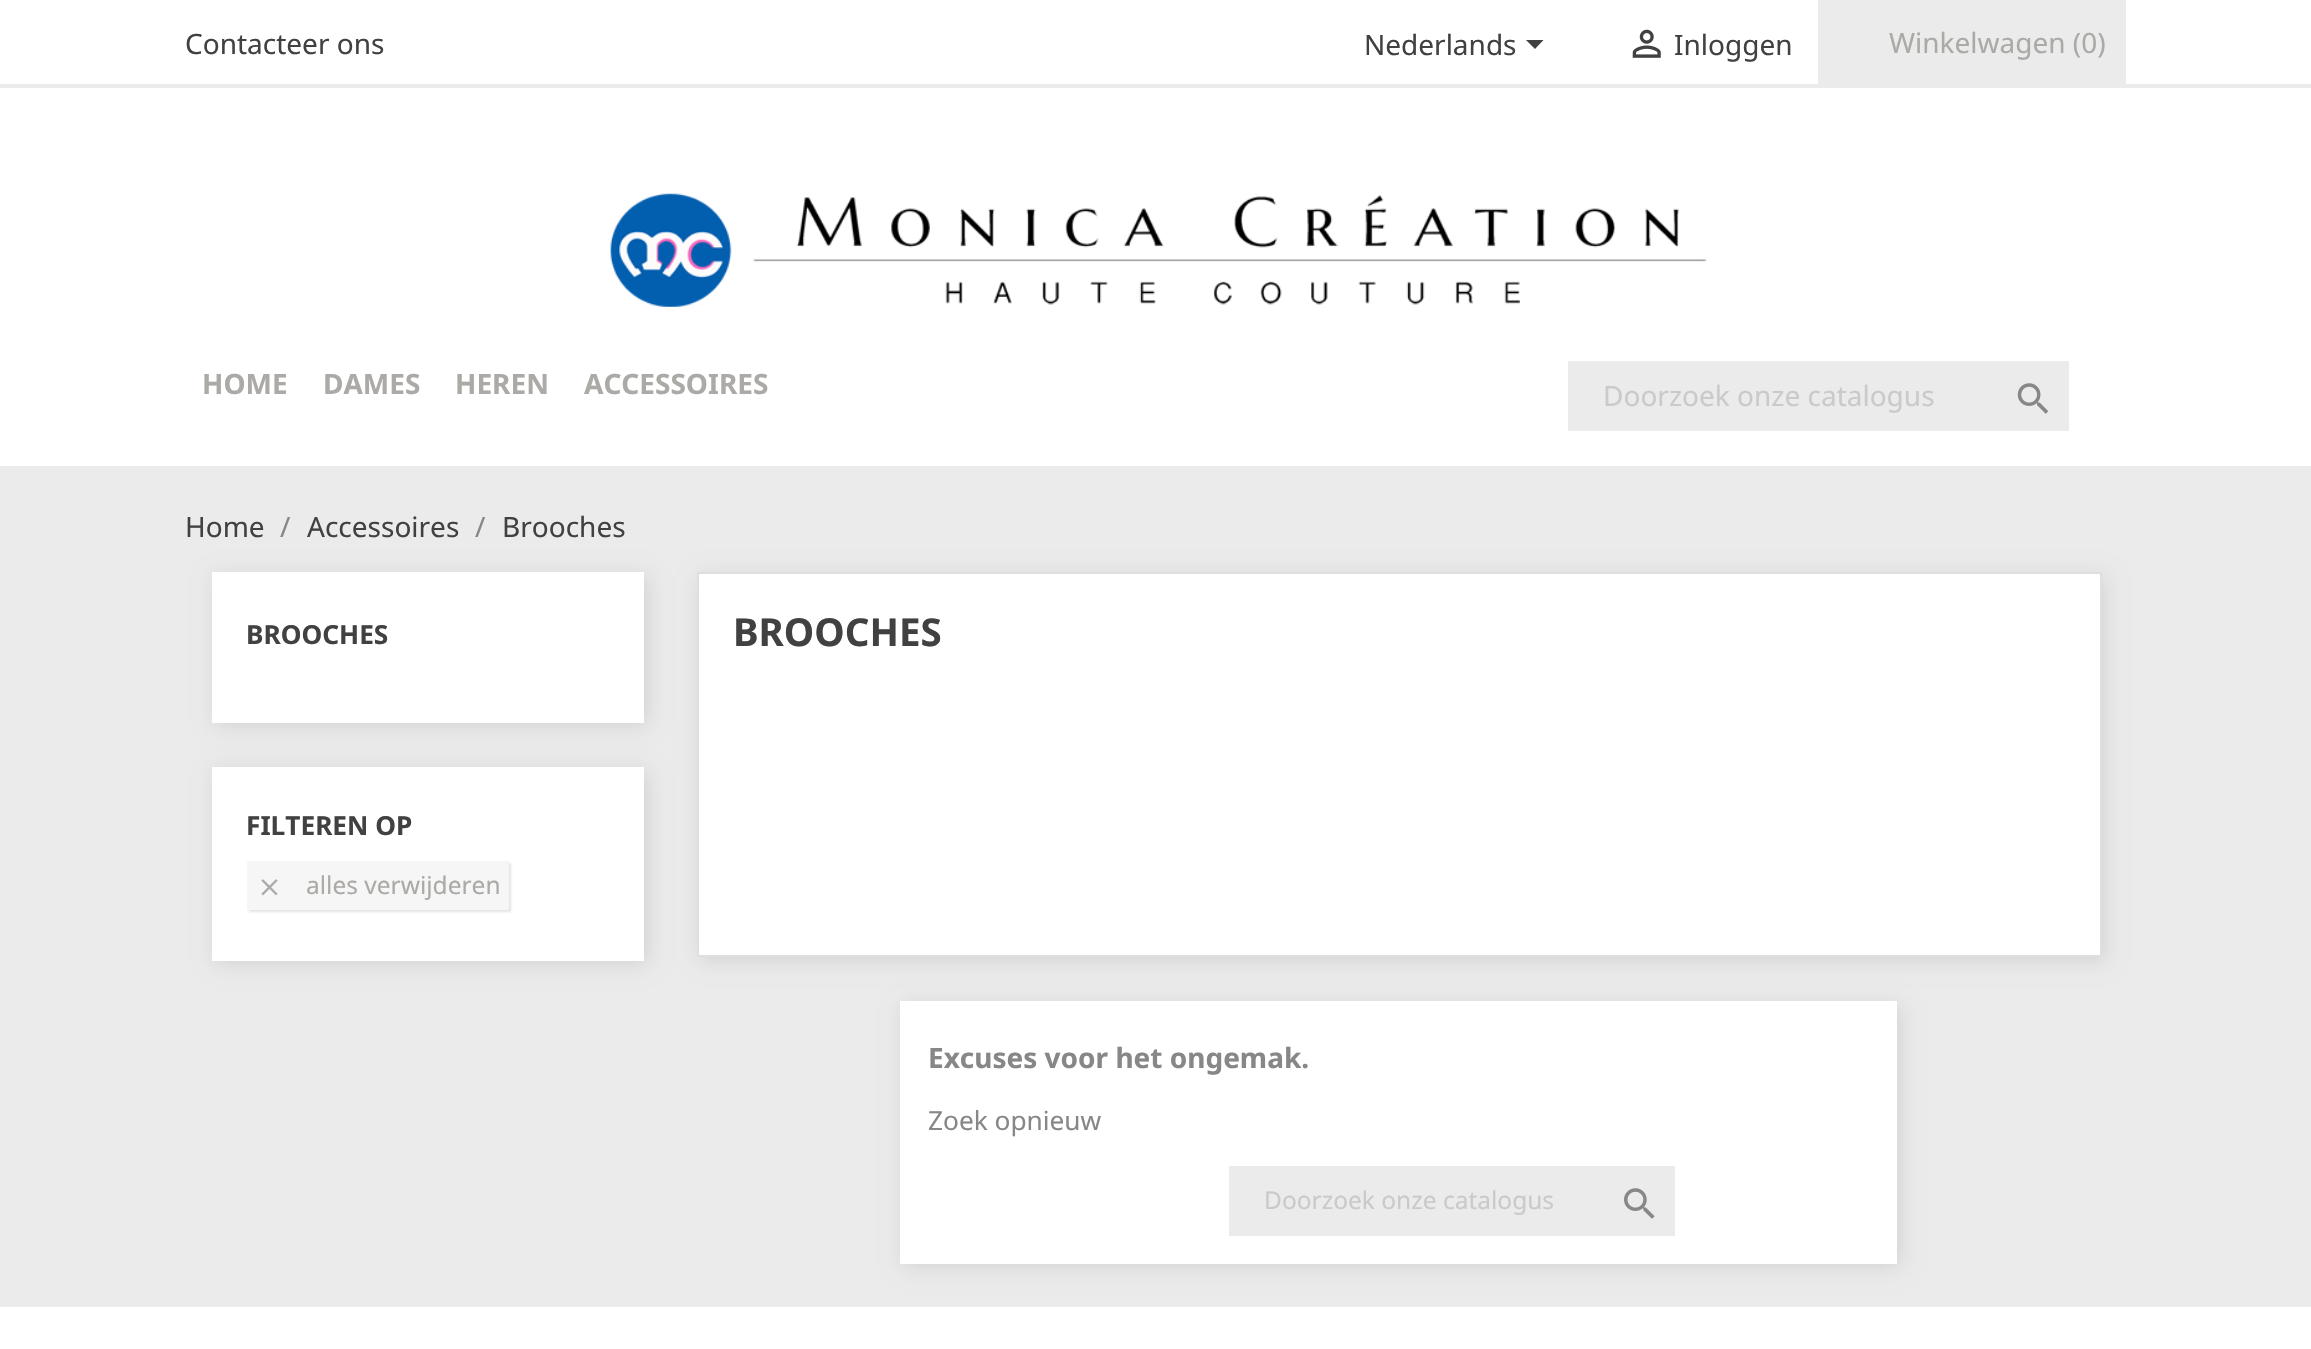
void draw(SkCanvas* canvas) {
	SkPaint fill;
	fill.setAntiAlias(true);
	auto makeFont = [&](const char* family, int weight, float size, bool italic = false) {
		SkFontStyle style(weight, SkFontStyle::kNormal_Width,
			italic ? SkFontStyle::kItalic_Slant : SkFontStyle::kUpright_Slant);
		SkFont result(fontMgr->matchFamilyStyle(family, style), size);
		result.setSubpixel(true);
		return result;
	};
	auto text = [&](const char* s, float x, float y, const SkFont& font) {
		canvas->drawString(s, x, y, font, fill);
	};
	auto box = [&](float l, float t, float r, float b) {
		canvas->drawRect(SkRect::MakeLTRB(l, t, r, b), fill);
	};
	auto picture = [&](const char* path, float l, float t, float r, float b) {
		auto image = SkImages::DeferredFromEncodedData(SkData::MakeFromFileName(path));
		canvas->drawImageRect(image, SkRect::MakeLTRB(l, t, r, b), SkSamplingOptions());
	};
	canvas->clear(0xFFFFFFFF);
	fill.setColor(0xFFEBEBEB);
	box(0, 84, 2311, 88);
	fill.setColor(0xFF414141);
	canvas->drawPath(SkPathBuilder().moveTo(1526, 40).lineTo(1543.5f, 40).lineTo(1535, 49).close().detach(), fill);
	picture("image0.png", 1632, 29, 1661, 58);
	fill.setColor(0xFFEBEBEB);
	box(1818, 0, 2126, 84);
	picture("image1.png", 610, 193, 1707, 307);
	box(1568, 361, 2069, 431);
	picture("image2.png", 2017, 383, 2049, 414);
	box(0, 466, 2311, 1307);
	fill.setColor(0x1A000000);
	fill.setMaskFilter(SkMaskFilter::MakeBlur(kNormal_SkBlurStyle, 9.5f));
	canvas->drawRect(SkRect::MakeLTRB(215, 576, 648, 726), fill);
	fill.setMaskFilter(nullptr);
	fill.setColor(0xFFFFFFFF);
	box(212, 572, 644, 723);
	fill.setColor(0x1A000000);
	fill.setMaskFilter(SkMaskFilter::MakeBlur(kNormal_SkBlurStyle, 9.5f));
	canvas->drawRect(SkRect::MakeLTRB(215, 770, 648, 964), fill);
	fill.setMaskFilter(nullptr);
	fill.setColor(0xFFFFFFFF);
	box(212, 767, 644, 961);
	fill.setColor(0x1A000000);
	fill.setMaskFilter(SkMaskFilter::MakeBlur(kNormal_SkBlurStyle, 1));
	canvas->drawRect(SkRect::MakeLTRB(249, 863, 511, 912), fill);
	fill.setMaskFilter(nullptr);
	fill.setColor(0xFFF6F6F6);
	box(247, 861, 509, 910);
	picture("image3.png", 261, 879, 278, 896);
	fill.setColor(0x1A000000);
	fill.setMaskFilter(SkMaskFilter::MakeBlur(kNormal_SkBlurStyle, 9.5f));
	canvas->drawRect(SkRect::MakeLTRB(700, 576, 2105, 961), fill);
	fill.setMaskFilter(nullptr);
	fill.setColor(0xFFFFFFFF);
	canvas->drawRect(SkRect::MakeLTRB(698, 573, 2101, 956), fill);
	fill.setStyle(SkPaint::kStroke_Style);
	fill.setStrokeWidth(2);
	fill.setColor(0xFFDFDFDF);
	canvas->drawRect(SkRect::MakeLTRB(698, 573, 2101, 956), fill);
	fill.setStyle(SkPaint::kFill_Style);
	fill.setColor(0x1A000000);
	fill.setMaskFilter(SkMaskFilter::MakeBlur(kNormal_SkBlurStyle, 9.5f));
	canvas->drawRect(SkRect::MakeLTRB(903, 1005, 1901, 1267), fill);
	fill.setMaskFilter(nullptr);
	fill.setColor(0xFFFFFFFF);
	box(900, 1001, 1897, 1264);
	fill.setColor(0xFFEBEBEB);
	box(1229, 1166, 1675, 1236);
	picture("image4.png", 1624, 1188, 1655, 1219);
	auto font1 = makeFont("Noto Sans", 400, 28);
	fill.setColor(0xFF414141);
	text("Contacteer ons", 185, 54, font1);
	text("Nederlands", 1364, 55, font1);
	text("Inloggen", 1674, 55, font1);
	fill.setColor(0xFFACAAA6);
	text("Winkelwagen (0)", 1889, 53, font1);
	auto font2 = makeFont("Noto Sans", 700, 28);
	text("HOME", 202, 394, font2);
	text("DAMES", 323, 394, font2);
	text("HEREN", 455, 394, font2);
	text("ACCESSOIRES", 584, 394, font2);
	fill.setColor(0xFFCBCAC9);
	text("Doorzoek onze catalogus", 1603, 406, font1);
	fill.setColor(0xFF414141);
	text("Home", 185, 537, font1);
	fill.setColor(0xFF878787);
	text("/", 280, 537, font1);
	fill.setColor(0xFF414141);
	text("Accessoires", 307, 537, font1);
	fill.setColor(0xFF878787);
	text("/", 475, 537, font1);
	fill.setColor(0xFF414141);
	text("Brooches", 502, 537, font1);
	auto font3 = makeFont("Noto Sans", 700, 26.25f);
	text("BROOCHES", 246, 644, font3);
	text("FILTEREN OP", 246, 835, font3);
	auto font4 = makeFont("Noto Sans", 400, 24.5f);
	fill.setColor(0xFFACAAA6);
	text("alles verwijderen", 306, 894, font4);
	auto font5 = makeFont("Noto Sans", 700, 38.5f);
	fill.setColor(0xFF414141);
	text("BROOCHES", 733, 646, font5);
	fill.setColor(0xFF878787);
	text("Excuses voor het ongemak.", 928, 1068, font2);
	auto font6 = makeFont("Noto Sans", 400, 26.25f);
	text("Zoek opnieuw", 928, 1130, font6);
	fill.setColor(0xFFCBCAC9);
	text("Doorzoek onze catalogus", 1264, 1209, font4);
}
